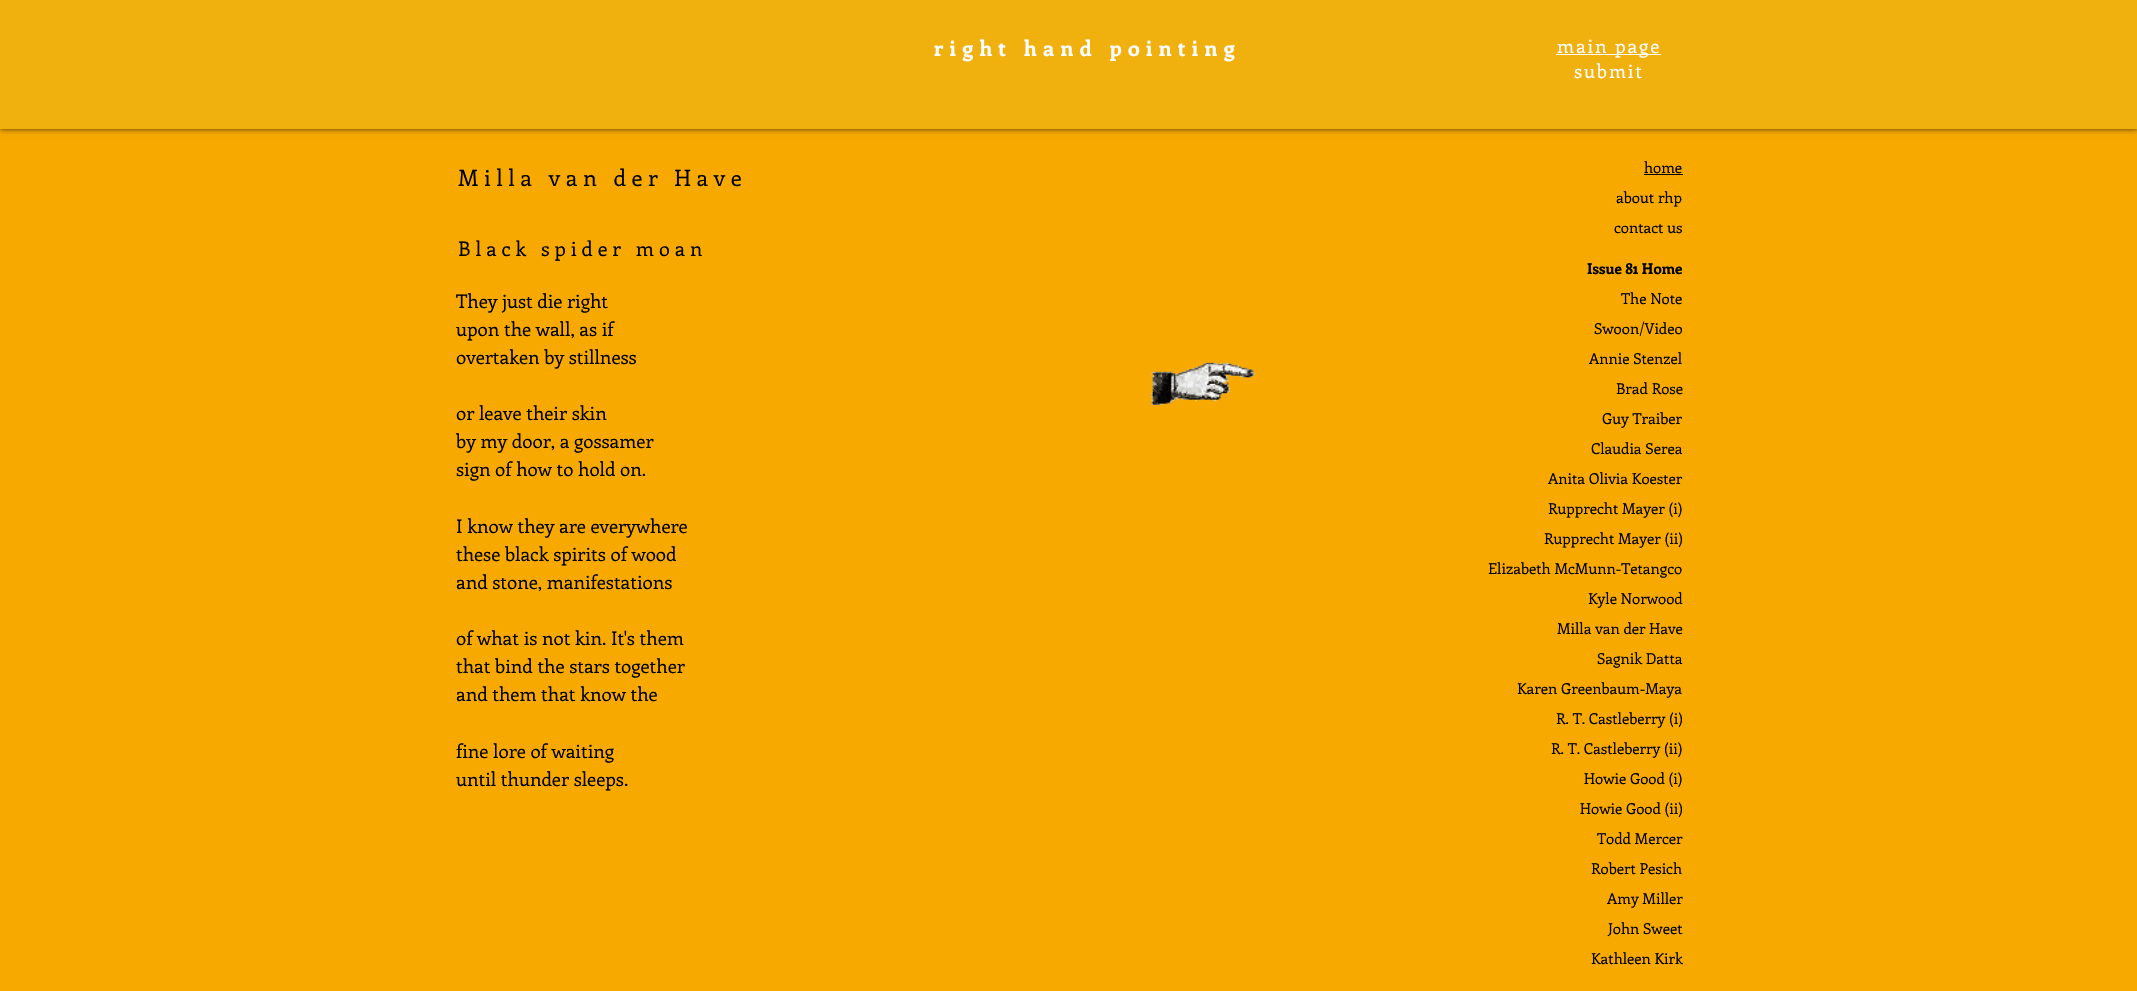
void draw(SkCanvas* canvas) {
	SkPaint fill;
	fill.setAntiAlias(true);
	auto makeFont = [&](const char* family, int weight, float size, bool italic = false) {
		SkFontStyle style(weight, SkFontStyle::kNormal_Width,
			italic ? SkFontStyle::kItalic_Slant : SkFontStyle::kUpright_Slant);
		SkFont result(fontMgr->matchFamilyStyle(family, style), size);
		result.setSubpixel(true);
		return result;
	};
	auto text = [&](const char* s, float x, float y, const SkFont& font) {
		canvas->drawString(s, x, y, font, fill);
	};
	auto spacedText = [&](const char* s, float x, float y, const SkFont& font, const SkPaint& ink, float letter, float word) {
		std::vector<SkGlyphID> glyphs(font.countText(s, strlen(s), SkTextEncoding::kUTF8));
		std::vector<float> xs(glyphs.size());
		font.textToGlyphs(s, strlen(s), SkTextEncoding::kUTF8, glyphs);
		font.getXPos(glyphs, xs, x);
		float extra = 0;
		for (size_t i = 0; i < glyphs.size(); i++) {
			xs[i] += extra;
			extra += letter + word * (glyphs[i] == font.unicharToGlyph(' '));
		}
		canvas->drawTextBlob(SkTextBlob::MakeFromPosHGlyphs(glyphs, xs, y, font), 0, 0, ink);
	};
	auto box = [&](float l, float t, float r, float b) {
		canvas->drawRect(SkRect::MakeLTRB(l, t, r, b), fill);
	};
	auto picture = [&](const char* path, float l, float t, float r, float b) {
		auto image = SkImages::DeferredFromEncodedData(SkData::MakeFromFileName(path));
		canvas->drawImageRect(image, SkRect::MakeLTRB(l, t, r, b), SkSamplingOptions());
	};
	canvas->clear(0xFFF7A900);
	fill.setColor(0xB3000000);
	fill.setMaskFilter(SkMaskFilter::MakeBlur(kNormal_SkBlurStyle, 3));
	canvas->drawRect(SkRect::MakeLTRB(0, 0, 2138, 129), fill);
	fill.setMaskFilter(nullptr);
	fill.setColor(0xFFF0B10F);
	box(0, 0, 2137, 129);
	fill.setColor(0xFFFEFDFD);
	box(1556, 54, 1661, 55);
	fill.setColor(0xFF000000);
	box(1644, 174, 1683, 175);
	picture("image0.png", 1151, 362, 1255, 405);
	auto font1 = makeFont("Enriqueta", 700, 21.25f);
	fill.setColor(0xFFFEFDFD);
	spacedText("right hand pointing", 934, 56, font1, fill, 6.4f, 0);
	auto font2 = makeFont("Enriqueta", 400, 18.75f);
	spacedText("main page", 1557, 53, font2, fill, 1.9f, 0);
	spacedText("submit", 1574, 78, font2, fill, 1.9f, 0);
	auto font3 = makeFont("Enriqueta", 400, 22.5f);
	fill.setColor(0xFF000000);
	text("M i l l a   v a n   d e r   H a v e", 458, 186, font3);
	auto font4 = makeFont("Enriqueta", 400, 15);
	text("home", 1644, 173, font4);
	text("about rhp", 1616, 203, font4);
	text("contact us", 1614, 233, font4);
	auto font5 = makeFont("Enriqueta", 700, 15);
	text("Issue 81 Home", 1587, 274, font5);
	text("The Note", 1621, 304, font4);
	text("Swoon/Video", 1594, 334, font4);
	text("Annie Stenzel", 1589, 364, font4);
	text("Brad Rose", 1616, 394, font4);
	text("Guy Traiber", 1602, 424, font4);
	text("Claudia Serea", 1591, 454, font4);
	text("Anita Olivia Koester", 1548, 484, font4);
	text("Rupprecht Mayer (i)", 1548, 514, font4);
	text("Rupprecht Mayer (ii)", 1544, 544, font4);
	text("Elizabeth McMunn-Tetangco", 1488, 574, font4);
	text("Kyle Norwood", 1588, 604, font4);
	text("Milla van der Have", 1557, 634, font4);
	text("Sagnik Datta", 1597, 664, font4);
	text("Karen Greenbaum-Maya", 1517, 694, font4);
	text("R. T. Castleberry (i)", 1556, 724, font4);
	text("R. T. Castleberry (ii)", 1551, 754, font4);
	text("Howie Good (i)", 1584, 784, font4);
	text("Howie Good (ii)", 1580, 814, font4);
	text("Todd Mercer", 1597, 844, font4);
	text("Robert Pesich", 1591, 874, font4);
	text("Amy Miller", 1607, 904, font4);
	text("John Sweet", 1608, 934, font4);
	text("Kathleen Kirk", 1591, 964, font4);
	auto font6 = makeFont("Enriqueta", 400, 20);
	text("B l a c k   s p i d e r   m o a n", 458, 256, font6);
	text("They just die right", 456, 308, font2);
	text("upon the wall, as if", 456, 336, font2);
	text("overtaken by stillness", 456, 364, font2);
	text("or leave their skin", 456, 420, font2);
	text("by my door, a gossamer", 456, 448, font2);
	text("sign of how to hold on.", 456, 476, font2);
	text("I know they are everywhere", 456, 533, font2);
	text("these black spirits of wood", 456, 561, font2);
	text("and stone, manifestations", 456, 589, font2);
	text("of what is not kin. It's them", 456, 645, font2);
	text("that bind the stars together", 456, 673, font2);
	text("and them that know the", 456, 701, font2);
	text("fine lore of waiting", 456, 758, font2);
	text("until thunder sleeps.", 456, 786, font2);
}
